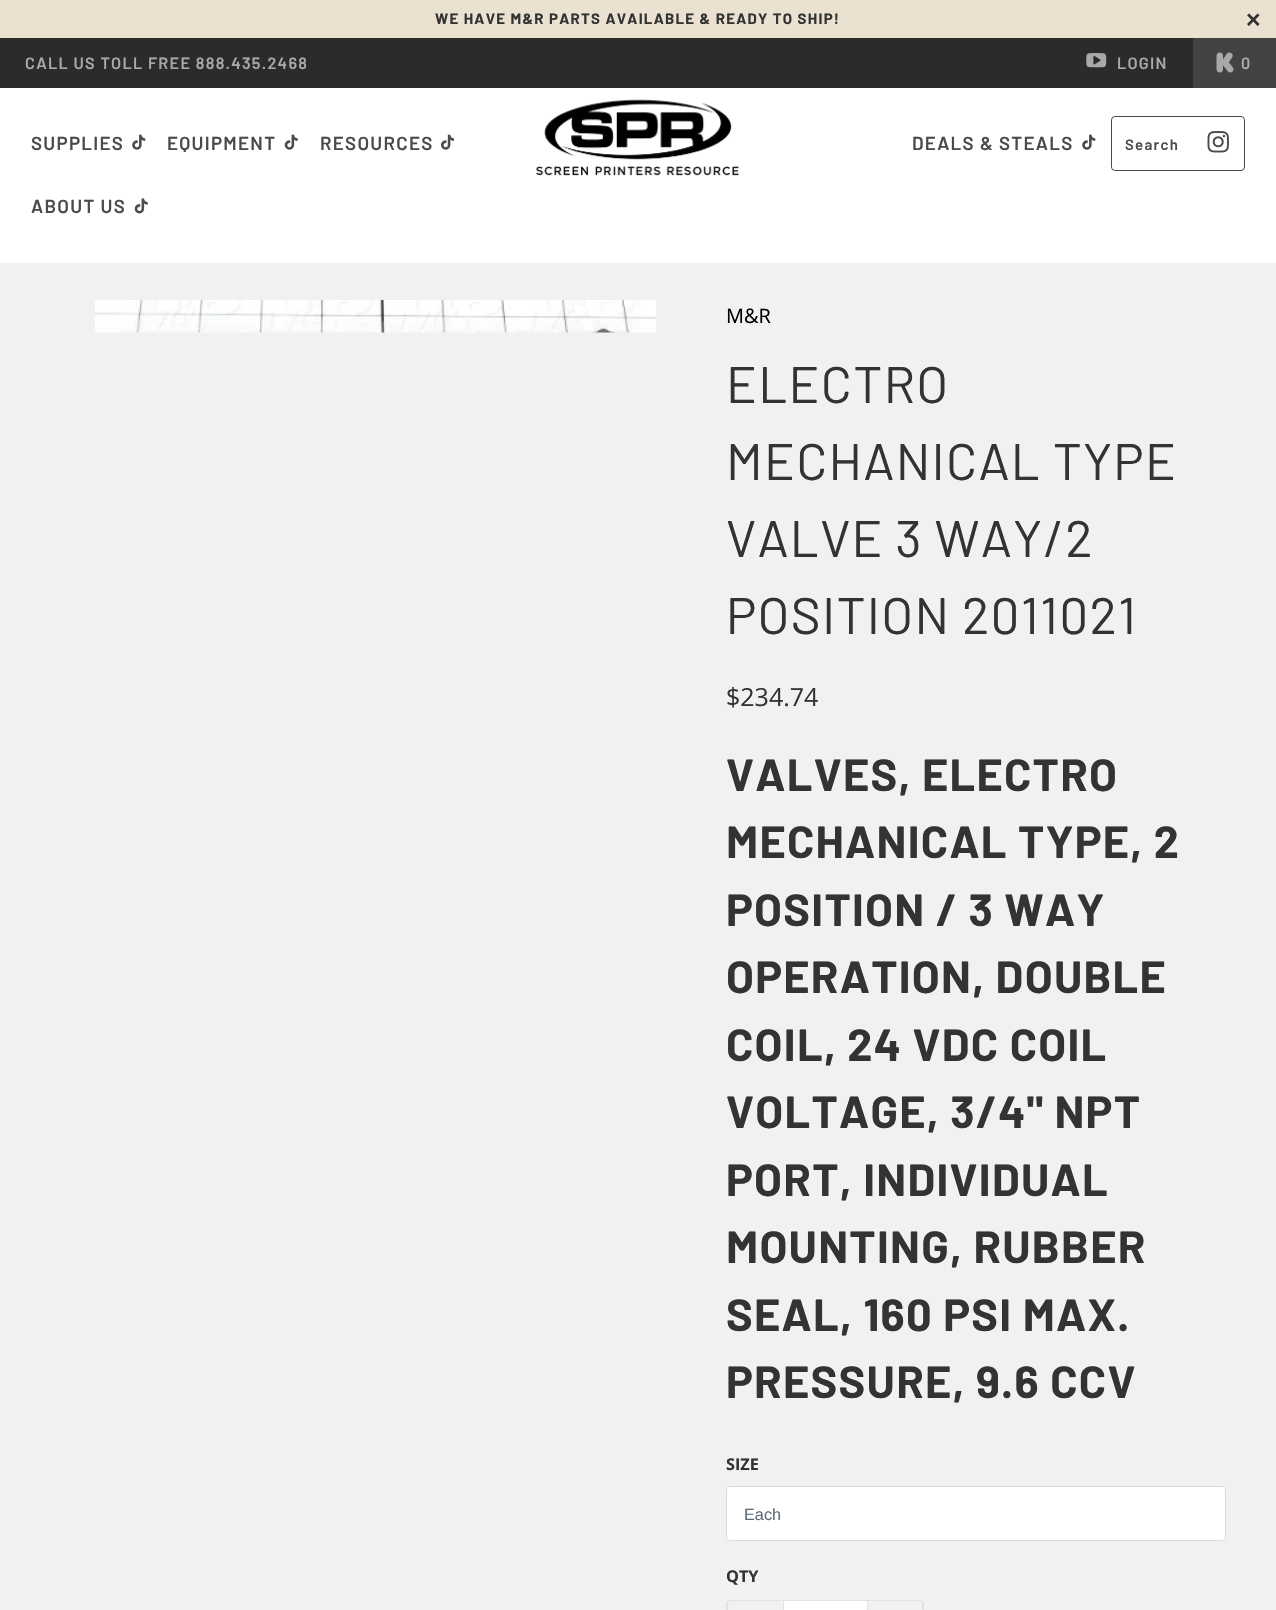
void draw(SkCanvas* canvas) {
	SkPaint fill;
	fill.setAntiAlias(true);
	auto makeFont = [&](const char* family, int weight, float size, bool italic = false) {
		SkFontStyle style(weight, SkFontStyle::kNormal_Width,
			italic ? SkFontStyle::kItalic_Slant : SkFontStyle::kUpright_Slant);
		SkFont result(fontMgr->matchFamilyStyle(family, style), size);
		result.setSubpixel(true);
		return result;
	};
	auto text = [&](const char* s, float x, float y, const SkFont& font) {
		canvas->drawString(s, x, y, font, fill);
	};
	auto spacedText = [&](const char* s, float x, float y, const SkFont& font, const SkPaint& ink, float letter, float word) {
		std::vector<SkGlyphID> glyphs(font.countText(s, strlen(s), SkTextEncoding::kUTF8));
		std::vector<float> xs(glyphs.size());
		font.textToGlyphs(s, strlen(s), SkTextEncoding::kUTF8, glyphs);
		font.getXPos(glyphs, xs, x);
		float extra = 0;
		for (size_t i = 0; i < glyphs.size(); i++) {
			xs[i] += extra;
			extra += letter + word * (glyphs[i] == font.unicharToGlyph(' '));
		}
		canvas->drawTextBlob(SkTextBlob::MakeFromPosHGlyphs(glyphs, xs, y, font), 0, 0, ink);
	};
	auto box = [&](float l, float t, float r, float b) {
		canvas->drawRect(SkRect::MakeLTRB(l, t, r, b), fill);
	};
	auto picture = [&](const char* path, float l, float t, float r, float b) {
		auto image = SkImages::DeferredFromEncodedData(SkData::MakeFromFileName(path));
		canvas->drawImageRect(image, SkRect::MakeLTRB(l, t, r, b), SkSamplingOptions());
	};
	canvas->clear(0xFFF1F1F1);
	fill.setColor(0xFFEAE1D1);
	box(0, 0, 1276, 38);
	fill.setColor(0xFF2D2A2A);
	box(0, 38, 1193, 88);
	picture("image0.png", 1086, 53, 1107, 68);
	fill.setColor(0xFF424242);
	box(1193, 38, 1276, 88);
	picture("image1.png", 1216, 52, 1234, 73);
	fill.setColor(0xFFFFFFFF);
	box(0, 88, 1276, 263);
	picture("image2.png", 132, 134, 146, 150);
	picture("image3.png", 284, 134, 298, 150);
	picture("image4.png", 441, 134, 454, 150);
	picture("image5.png", 134, 198, 148, 214);
	picture("image6.png", 536, 99, 740, 176);
	picture("image2.png", 1082, 134, 1096, 150);
	fill.setStyle(SkPaint::kStroke_Style);
	fill.setStrokeWidth(1);
	fill.setColor(0xFF4B4B4B);
	canvas->drawRoundRect(SkRect::MakeLTRB(1111.5f, 116.5f, 1244.5f, 170.5f), 3.5f, 3.5f, fill);
	picture("image7.png", 1207, 131, 1229, 153);
	picture("image8.png", 95, 300, 656, 333);
	fill.setStyle(SkPaint::kFill_Style);
	fill.setColor(0xFFFFFFFF);
	canvas->drawRoundRect(SkRect::MakeLTRB(726.5f, 1486.5f, 1225.5f, 1540.5f), 3.5f, 3.5f, fill);
	fill.setStyle(SkPaint::kStroke_Style);
	fill.setColor(0xFFD9DBDC);
	canvas->drawRoundRect(SkRect::MakeLTRB(726.5f, 1486.5f, 1225.5f, 1540.5f), 3.5f, 3.5f, fill);
	fill.setStyle(SkPaint::kFill_Style);
	fill.setColor(0xFFE2E2E2);
	canvas->drawPath(SkPathBuilder(SkPathFillType::kEvenOdd).moveTo(730, 1600).lineTo(782, 1600).lineTo(782, 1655).lineTo(730, 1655).cubicTo(728, 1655, 726, 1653, 726, 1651).lineTo(726, 1604).cubicTo(726, 1602, 728, 1600, 730, 1600).close().moveTo(730, 1601).lineTo(782, 1601).lineTo(782, 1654).lineTo(730, 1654).cubicTo(729, 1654, 728, 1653, 728, 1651).lineTo(728, 1604).cubicTo(728, 1602, 729, 1601, 730, 1601).close().detach(), fill);
	fill.setColor(0xFFFFFFFF);
	canvas->drawRect(SkRect::MakeLTRB(783.5f, 1600.5f, 867.5f, 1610.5f), fill);
	fill.setStyle(SkPaint::kStroke_Style);
	fill.setColor(0xFFE2E2E2);
	canvas->drawRect(SkRect::MakeLTRB(783.5f, 1600.5f, 867.5f, 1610.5f), fill);
	fill.setStyle(SkPaint::kFill_Style);
	canvas->drawPath(SkPathBuilder(SkPathFillType::kEvenOdd).moveTo(868, 1600).lineTo(920, 1600).cubicTo(922, 1600, 924, 1602, 924, 1604).lineTo(924, 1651).cubicTo(924, 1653, 922, 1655, 920, 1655).lineTo(868, 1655).close().moveTo(868, 1601).lineTo(920, 1601).cubicTo(921, 1601, 922, 1602, 922, 1604).lineTo(922, 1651).cubicTo(922, 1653, 921, 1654, 920, 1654).lineTo(868, 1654).close().detach(), fill);
	auto font1 = makeFont("Barlow", 700, 15);
	fill.setColor(0xFF333333);
	spacedText("WE HAVE M&R PARTS AVAILABLE & READY TO SHIP!", 435, 24, font1, fill, 1.25f, 0);
	auto font2 = makeFont("Liberation Sans", 700, 25);
	spacedText("×", 1246, 28, font2, fill, 1.25f, 0);
	auto font3 = makeFont("Barlow", 600, 16.25f);
	fill.setColor(0xFFA9A9A9);
	spacedText("CALL US TOLL FREE 888.435.2468", 25, 69, font3, fill, 1.25f, 0);
	spacedText("LOGIN", 1117, 69, font3, fill, 1.25f, 0);
	spacedText("0", 1241, 69, font3, fill, 1.25f, 0);
	auto font4 = makeFont("Barlow", 600, 18.75f);
	fill.setColor(0xFF4B4B4B);
	spacedText("SUPPLIES", 31, 150, font4, fill, 1.25f, 0);
	spacedText("EQUIPMENT", 167, 150, font4, fill, 1.25f, 0);
	spacedText("RESOURCES", 320, 150, font4, fill, 1.25f, 0);
	spacedText("ABOUT US", 31, 213, font4, fill, 1.25f, 0);
	spacedText("DEALS & STEALS", 912, 150, font4, fill, 1.25f, 0);
	auto font5 = makeFont("Barlow", 600, 15);
	spacedText("Search", 1125, 150, font5, fill, 1.25f, 0);
	auto font6 = makeFont("Open Sans", 400, 20);
	fill.setColor(0xFF000000);
	text("M&R", 726, 323, font6);
	auto font7 = makeFont("Barlow", 400, 51.25f);
	fill.setColor(0xFF333333);
	spacedText("ELECTRO", 726, 403, font7, fill, 1.25f, 0);
	spacedText("MECHANICAL TYPE", 726, 480, font7, fill, 1.25f, 0);
	spacedText("VALVE 3 WAY/2", 726, 557, font7, fill, 1.25f, 0);
	spacedText("POSITION 2011021", 726, 634, font7, fill, 1.25f, 0);
	auto font8 = makeFont("Open Sans", 400, 25);
	text("$234.74", 726, 706, font8);
	auto font9 = makeFont("Barlow", 700, 45);
	spacedText("VALVES, ELECTRO", 726, 791, font9, fill, 1.25f, 0);
	spacedText("MECHANICAL TYPE, 2", 726, 858, font9, fill, 1.25f, 0);
	spacedText("POSITION / 3 WAY", 726, 926, font9, fill, 1.25f, 0);
	spacedText("OPERATION, DOUBLE", 726, 993, font9, fill, 1.25f, 0);
	spacedText("COIL, 24 VDC COIL", 726, 1061, font9, fill, 1.25f, 0);
	spacedText("VOLTAGE, 3/4\" NPT", 726, 1128, font9, fill, 1.25f, 0);
	spacedText("PORT, INDIVIDUAL", 726, 1196, font9, fill, 1.25f, 0);
	spacedText("MOUNTING, RUBBER", 726, 1263, font9, fill, 1.25f, 0);
	spacedText("SEAL, 160 PSI MAX.", 726, 1331, font9, fill, 1.25f, 0);
	spacedText("PRESSURE, 9.6 CCV", 726, 1398, font9, fill, 1.25f, 0);
	auto font10 = makeFont("Open Sans", 700, 16.25f);
	text("SIZE", 726, 1470, font10);
	auto font11 = makeFont("Liberation Sans", 400, 16.25f);
	fill.setColor(0xFF5F6A7D);
	text("Each", 744, 1520, font11);
	fill.setColor(0xFF333333);
	text("QTY", 726, 1582, font10);
}
